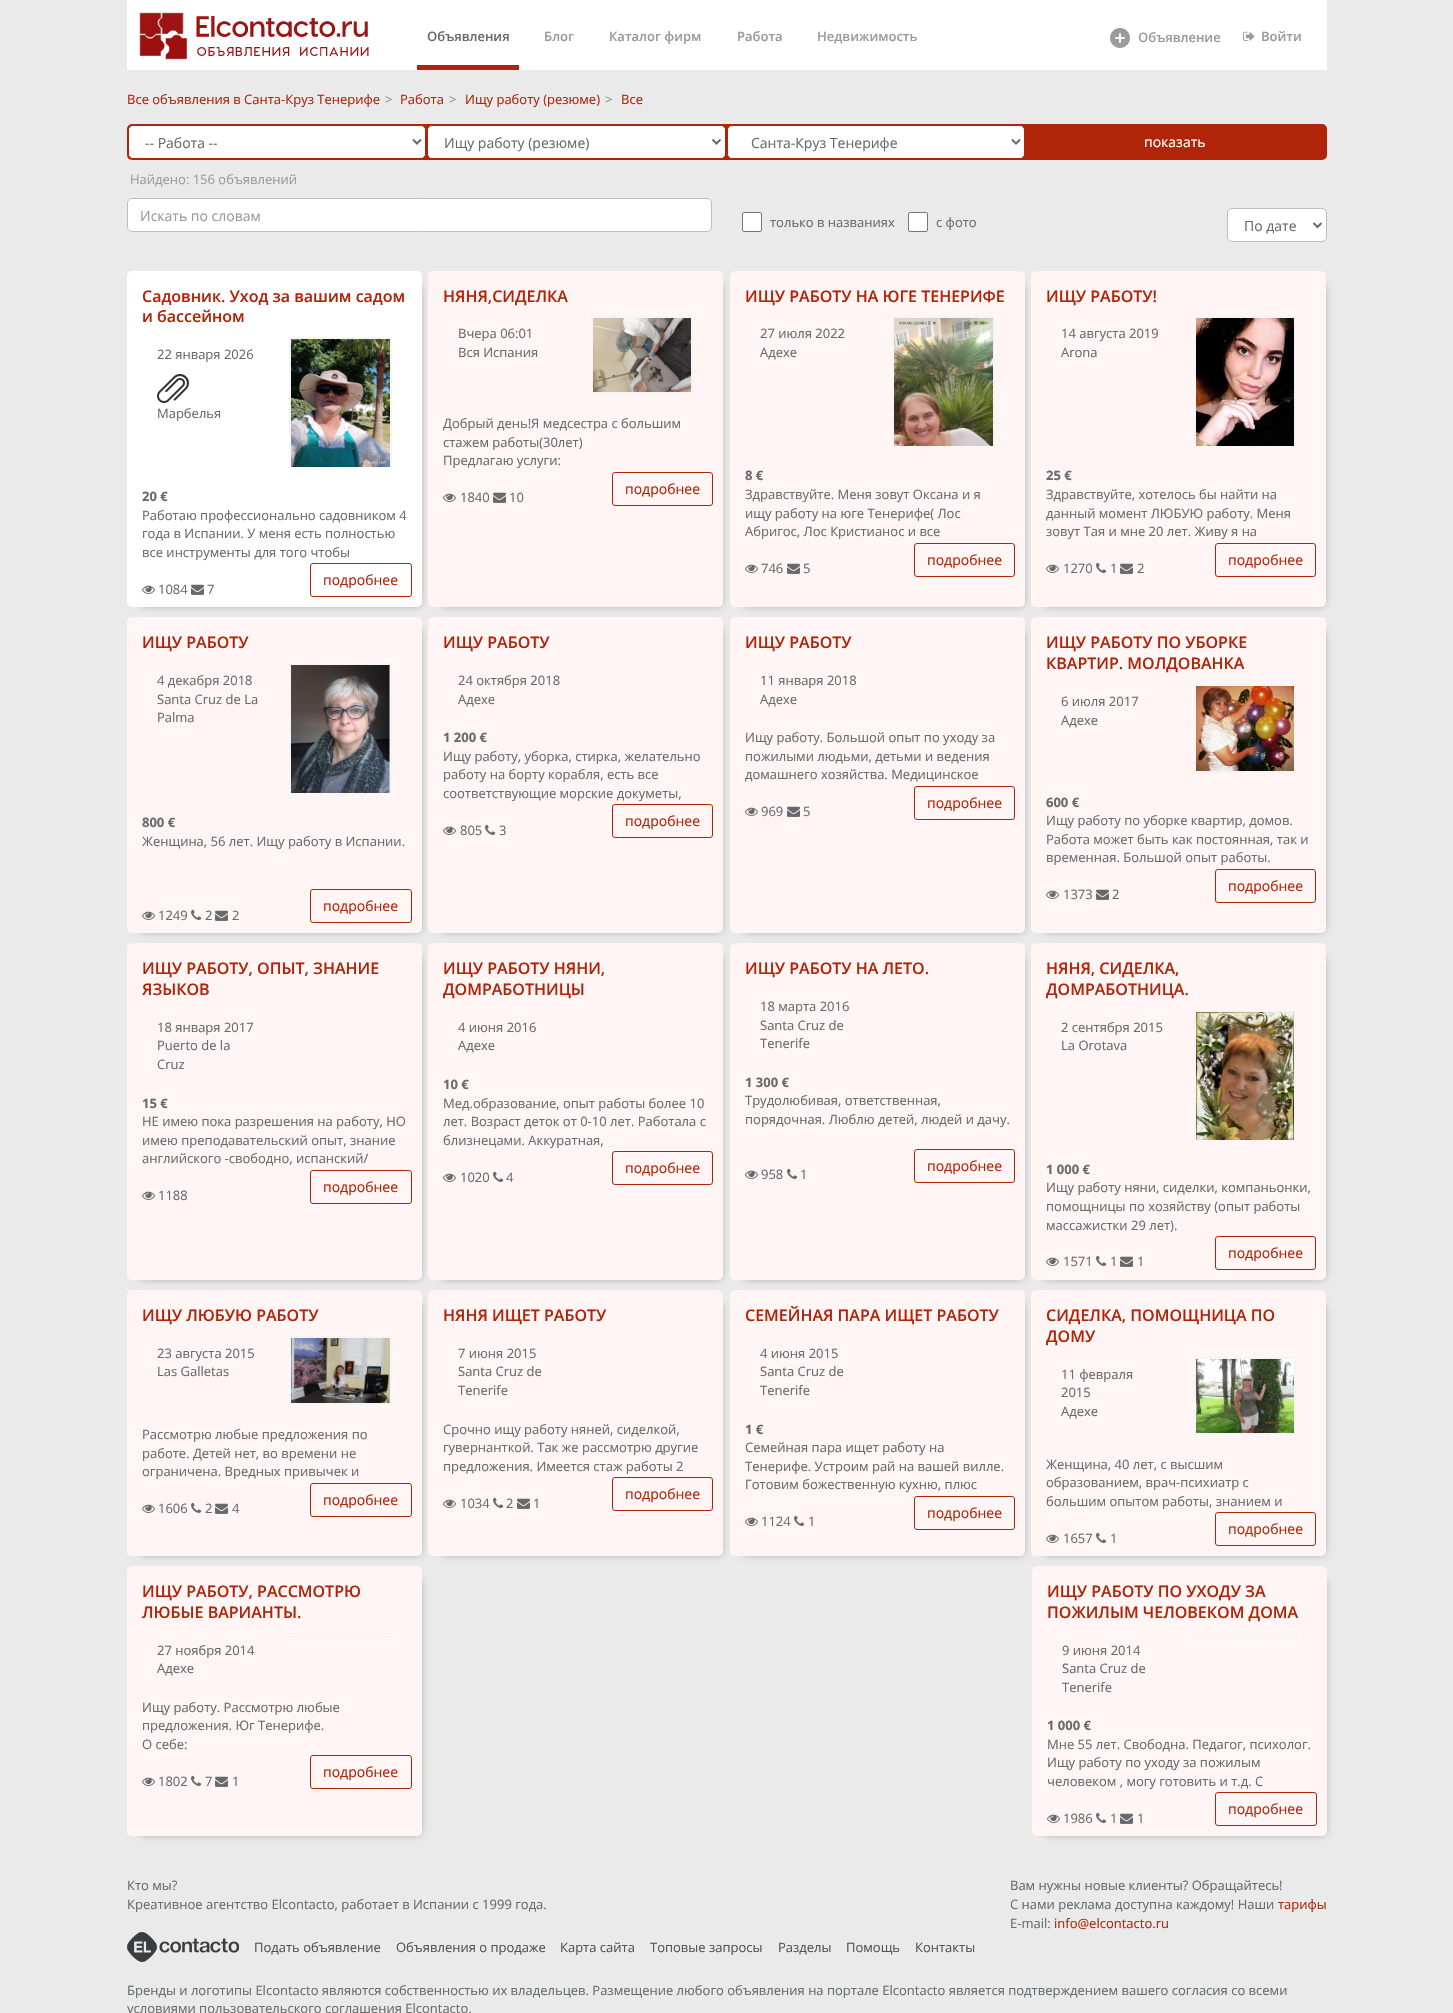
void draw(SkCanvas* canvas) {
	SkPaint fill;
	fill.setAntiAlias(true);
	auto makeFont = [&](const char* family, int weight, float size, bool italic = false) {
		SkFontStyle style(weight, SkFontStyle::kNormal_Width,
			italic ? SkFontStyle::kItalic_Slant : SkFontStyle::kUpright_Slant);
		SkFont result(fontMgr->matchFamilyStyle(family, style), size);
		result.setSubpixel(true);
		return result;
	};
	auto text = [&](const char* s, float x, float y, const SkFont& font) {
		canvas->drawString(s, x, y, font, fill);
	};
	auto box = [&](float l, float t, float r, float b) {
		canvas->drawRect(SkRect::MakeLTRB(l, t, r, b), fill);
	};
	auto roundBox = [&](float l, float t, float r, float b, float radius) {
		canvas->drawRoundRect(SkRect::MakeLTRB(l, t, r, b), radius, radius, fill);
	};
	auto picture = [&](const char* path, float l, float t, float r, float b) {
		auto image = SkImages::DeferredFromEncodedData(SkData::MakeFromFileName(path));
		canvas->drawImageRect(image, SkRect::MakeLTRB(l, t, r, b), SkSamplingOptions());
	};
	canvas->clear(0xFFEAEAEA);
	fill.setColor(0xFFFFFFFF);
	box(127, 0, 1327, 70);
	picture("image0.png", 139, 12, 369, 60);
	fill.setColor(0xFFB02409);
	box(417, 65, 519, 70);
	picture("image1.png", 1110, 28, 1130, 48);
	picture("image2.png", 1243, 31, 1255, 41);
	roundBox(127, 124, 1327, 160, 5);
	fill.setColor(0xFFFFFFFF);
	canvas->drawRoundRect(SkRect::MakeLTRB(128.5f, 125.5f, 425.5f, 158.5f), 4.5f, 4.5f, fill);
	fill.setStyle(SkPaint::kStroke_Style);
	fill.setStrokeWidth(1);
	fill.setColor(0xFFB02409);
	canvas->drawRoundRect(SkRect::MakeLTRB(128.5f, 125.5f, 425.5f, 158.5f), 4.5f, 4.5f, fill);
	fill.setStrokeWidth(2);
	fill.setColor(0xFF676A6C);
	canvas->drawPath(SkPathBuilder().moveTo(413, 139.5f).lineTo(417, 143.5f).lineTo(421, 139.5f).detach(), fill);
	fill.setStyle(SkPaint::kFill_Style);
	fill.setColor(0xFFFFFFFF);
	canvas->drawRoundRect(SkRect::MakeLTRB(427.5f, 125.5f, 725.5f, 158.5f), 4.5f, 4.5f, fill);
	fill.setStyle(SkPaint::kStroke_Style);
	fill.setStrokeWidth(1);
	fill.setColor(0xFFB02409);
	canvas->drawRoundRect(SkRect::MakeLTRB(427.5f, 125.5f, 725.5f, 158.5f), 4.5f, 4.5f, fill);
	fill.setStrokeWidth(2);
	fill.setColor(0xFF676A6C);
	canvas->drawPath(SkPathBuilder().moveTo(712.5f, 139.5f).lineTo(716.5f, 143.5f).lineTo(720.5f, 139.5f).detach(), fill);
	fill.setStyle(SkPaint::kFill_Style);
	fill.setColor(0xFFFFFFFF);
	canvas->drawRoundRect(SkRect::MakeLTRB(727.5f, 125.5f, 1024.5f, 158.5f), 4.5f, 4.5f, fill);
	fill.setStyle(SkPaint::kStroke_Style);
	fill.setStrokeWidth(1);
	fill.setColor(0xFFB02409);
	canvas->drawRoundRect(SkRect::MakeLTRB(727.5f, 125.5f, 1024.5f, 158.5f), 4.5f, 4.5f, fill);
	fill.setStrokeWidth(2);
	fill.setColor(0xFF676A6C);
	canvas->drawPath(SkPathBuilder().moveTo(1012, 139.5f).lineTo(1016, 143.5f).lineTo(1020, 139.5f).detach(), fill);
	fill.setStyle(SkPaint::kFill_Style);
	fill.setColor(0xFFFFFFFF);
	canvas->drawRoundRect(SkRect::MakeLTRB(127.5f, 198.5f, 711.5f, 231.5f), 4.5f, 4.5f, fill);
	fill.setStyle(SkPaint::kStroke_Style);
	fill.setStrokeWidth(1);
	fill.setColor(0xFFBDBDBD);
	canvas->drawRoundRect(SkRect::MakeLTRB(127.5f, 198.5f, 711.5f, 231.5f), 4.5f, 4.5f, fill);
	fill.setStyle(SkPaint::kFill_Style);
	fill.setColor(0xFFFFFFFF);
	canvas->drawRoundRect(SkRect::MakeLTRB(742.5f, 212.5f, 761.5f, 231.5f), 1.5f, 1.5f, fill);
	fill.setStyle(SkPaint::kStroke_Style);
	fill.setColor(0xFF767676);
	canvas->drawRoundRect(SkRect::MakeLTRB(742.5f, 212.5f, 761.5f, 231.5f), 1.5f, 1.5f, fill);
	fill.setStyle(SkPaint::kFill_Style);
	fill.setColor(0xFFFFFFFF);
	canvas->drawRoundRect(SkRect::MakeLTRB(908.5f, 212.5f, 927.5f, 231.5f), 1.5f, 1.5f, fill);
	fill.setStyle(SkPaint::kStroke_Style);
	fill.setColor(0xFF767676);
	canvas->drawRoundRect(SkRect::MakeLTRB(908.5f, 212.5f, 927.5f, 231.5f), 1.5f, 1.5f, fill);
	fill.setStyle(SkPaint::kFill_Style);
	fill.setColor(0xFFFFFFFF);
	canvas->drawRoundRect(SkRect::MakeLTRB(1227.5f, 208.5f, 1326.5f, 241.5f), 4.5f, 4.5f, fill);
	fill.setStyle(SkPaint::kStroke_Style);
	fill.setColor(0xFFBDBDBD);
	canvas->drawRoundRect(SkRect::MakeLTRB(1227.5f, 208.5f, 1326.5f, 241.5f), 4.5f, 4.5f, fill);
	fill.setStrokeWidth(2);
	fill.setColor(0xFF676A6C);
	canvas->drawPath(SkPathBuilder().moveTo(1313.5f, 223).lineTo(1317.5f, 227).lineTo(1321.5f, 223).detach(), fill);
	fill.setStyle(SkPaint::kFill_Style);
	fill.setColor(0xFF949494);
	fill.setMaskFilter(SkMaskFilter::MakeBlur(kNormal_SkBlurStyle, 4));
	canvas->drawRect(SkRect::MakeLTRB(141, 285, 420, 605), fill);
	fill.setMaskFilter(nullptr);
	fill.setColor(0xFFFFFFFF);
	roundBox(127, 271, 422, 607, 5);
	picture("image3.png", 157, 374, 189, 403);
	canvas->save();
	canvas->clipRect(SkRect::MakeLTRB(274, 337, 407, 467));
	fill.setStyle(SkPaint::kStroke_Style);
	fill.setStrokeWidth(1);
	fill.setColor(0xFFF5F5F5);
	canvas->drawRect(SkRect::MakeLTRB(289.5f, 337.5f, 391.5f, 468.5f), fill);
	canvas->drawRect(SkRect::MakeLTRB(290.5f, 338.5f, 390.5f, 467.5f), fill);
	canvas->restore();
	picture("image4.png", 291, 339, 390, 467);
	picture("image5.png", 142, 585, 155, 594);
	picture("image6.png", 191, 584, 204, 595);
	fill.setColor(0xFFB02409);
	canvas->drawRoundRect(SkRect::MakeLTRB(310.5f, 563.5f, 411.5f, 596.5f), 2.5f, 2.5f, fill);
	fill.setStyle(SkPaint::kFill_Style);
	fill.setColor(0xFF949494);
	fill.setMaskFilter(SkMaskFilter::MakeBlur(kNormal_SkBlurStyle, 4));
	canvas->drawRect(SkRect::MakeLTRB(442, 285, 721, 605), fill);
	fill.setMaskFilter(nullptr);
	fill.setColor(0xFFFFF5F4);
	roundBox(428, 271, 723, 607, 5);
	fill.setStyle(SkPaint::kStroke_Style);
	fill.setColor(0xFFF5F5F5);
	canvas->drawRect(SkRect::MakeLTRB(591.5f, 316.5f, 692.5f, 393.5f), fill);
	canvas->drawRect(SkRect::MakeLTRB(592.5f, 317.5f, 691.5f, 392.5f), fill);
	picture("image7.png", 593, 318, 691, 392);
	picture("image8.png", 443, 493, 456, 502);
	picture("image9.png", 493, 492, 506, 503);
	fill.setColor(0xFFB02409);
	canvas->drawRoundRect(SkRect::MakeLTRB(612.5f, 472.5f, 712.5f, 505.5f), 2.5f, 2.5f, fill);
	fill.setStyle(SkPaint::kFill_Style);
	fill.setColor(0xFF949494);
	fill.setMaskFilter(SkMaskFilter::MakeBlur(kNormal_SkBlurStyle, 4));
	canvas->drawRect(SkRect::MakeLTRB(744, 285, 1023, 605), fill);
	fill.setMaskFilter(nullptr);
	fill.setColor(0xFFFFF5F4);
	roundBox(730, 271, 1025, 607, 5);
	canvas->save();
	canvas->clipRect(SkRect::MakeLTRB(877, 316, 1010, 446));
	fill.setStyle(SkPaint::kStroke_Style);
	fill.setColor(0xFFF5F5F5);
	canvas->drawRect(SkRect::MakeLTRB(892.5f, 316.5f, 994.5f, 538.5f), fill);
	canvas->drawRect(SkRect::MakeLTRB(893.5f, 317.5f, 993.5f, 537.5f), fill);
	canvas->restore();
	picture("image10.png", 894, 318, 993, 446);
	picture("image8.png", 745, 564, 758, 573);
	picture("image9.png", 787, 563, 800, 574);
	fill.setColor(0xFFB02409);
	canvas->drawRoundRect(SkRect::MakeLTRB(914.5f, 543.5f, 1014.5f, 576.5f), 2.5f, 2.5f, fill);
	fill.setStyle(SkPaint::kFill_Style);
	fill.setColor(0xFF949494);
	fill.setMaskFilter(SkMaskFilter::MakeBlur(kNormal_SkBlurStyle, 4));
	canvas->drawRect(SkRect::MakeLTRB(1045, 285, 1324, 605), fill);
	fill.setMaskFilter(nullptr);
	fill.setColor(0xFFFFF5F4);
	roundBox(1031, 271, 1326, 607, 5);
	canvas->save();
	canvas->clipRect(SkRect::MakeLTRB(1179, 316, 1311, 446));
	fill.setStyle(SkPaint::kStroke_Style);
	fill.setColor(0xFFF5F5F5);
	canvas->drawRect(SkRect::MakeLTRB(1194.5f, 316.5f, 1295.5f, 494.5f), fill);
	canvas->drawRect(SkRect::MakeLTRB(1195.5f, 317.5f, 1294.5f, 493.5f), fill);
	canvas->restore();
	picture("image11.png", 1196, 318, 1294, 446);
	picture("image8.png", 1046, 564, 1059, 573);
	picture("image12.png", 1096, 562, 1107, 573);
	picture("image9.png", 1120, 563, 1133, 574);
	fill.setColor(0xFFB02409);
	canvas->drawRoundRect(SkRect::MakeLTRB(1215.5f, 543.5f, 1315.5f, 576.5f), 2.5f, 2.5f, fill);
	fill.setStyle(SkPaint::kFill_Style);
	fill.setColor(0xFF949494);
	fill.setMaskFilter(SkMaskFilter::MakeBlur(kNormal_SkBlurStyle, 4));
	canvas->drawRect(SkRect::MakeLTRB(141, 631, 420, 931), fill);
	fill.setMaskFilter(nullptr);
	fill.setColor(0xFFFFF5F4);
	roundBox(127, 617, 422, 933, 5);
	canvas->save();
	canvas->clipRect(SkRect::MakeLTRB(274, 663, 407, 793));
	fill.setStyle(SkPaint::kStroke_Style);
	fill.setColor(0xFFF5F5F5);
	canvas->drawRect(SkRect::MakeLTRB(289.5f, 663.5f, 391.5f, 797.5f), fill);
	canvas->drawRect(SkRect::MakeLTRB(290.5f, 664.5f, 390.5f, 796.5f), fill);
	canvas->restore();
	picture("image13.png", 291, 665, 390, 793);
	picture("image8.png", 142, 911, 155, 920);
	picture("image12.png", 191, 909, 202, 920);
	picture("image9.png", 215, 910, 228, 921);
	fill.setColor(0xFFB02409);
	canvas->drawRoundRect(SkRect::MakeLTRB(310.5f, 889.5f, 411.5f, 922.5f), 2.5f, 2.5f, fill);
	fill.setStyle(SkPaint::kFill_Style);
	fill.setColor(0xFF949494);
	fill.setMaskFilter(SkMaskFilter::MakeBlur(kNormal_SkBlurStyle, 4));
	canvas->drawRect(SkRect::MakeLTRB(442, 631, 721, 931), fill);
	fill.setMaskFilter(nullptr);
	fill.setColor(0xFFFFF5F4);
	roundBox(428, 617, 723, 933, 5);
	picture("image8.png", 443, 826, 456, 835);
	picture("image12.png", 485, 824, 496, 835);
	fill.setStyle(SkPaint::kStroke_Style);
	fill.setColor(0xFFB02409);
	canvas->drawRoundRect(SkRect::MakeLTRB(612.5f, 804.5f, 712.5f, 837.5f), 2.5f, 2.5f, fill);
	fill.setStyle(SkPaint::kFill_Style);
	fill.setColor(0xFF949494);
	fill.setMaskFilter(SkMaskFilter::MakeBlur(kNormal_SkBlurStyle, 4));
	canvas->drawRect(SkRect::MakeLTRB(744, 631, 1023, 931), fill);
	fill.setMaskFilter(nullptr);
	fill.setColor(0xFFFFF5F4);
	roundBox(730, 617, 1025, 933, 5);
	picture("image8.png", 745, 807, 758, 816);
	picture("image9.png", 787, 806, 800, 817);
	fill.setStyle(SkPaint::kStroke_Style);
	fill.setColor(0xFFB02409);
	canvas->drawRoundRect(SkRect::MakeLTRB(914.5f, 786.5f, 1014.5f, 819.5f), 2.5f, 2.5f, fill);
	fill.setStyle(SkPaint::kFill_Style);
	fill.setColor(0xFF949494);
	fill.setMaskFilter(SkMaskFilter::MakeBlur(kNormal_SkBlurStyle, 4));
	canvas->drawRect(SkRect::MakeLTRB(1045, 631, 1324, 931), fill);
	fill.setMaskFilter(nullptr);
	fill.setColor(0xFFFFF5F4);
	roundBox(1031, 617, 1326, 933, 5);
	fill.setStyle(SkPaint::kStroke_Style);
	fill.setColor(0xFFF5F5F5);
	canvas->drawRect(SkRect::MakeLTRB(1194.5f, 684.5f, 1295.5f, 772.5f), fill);
	canvas->drawRect(SkRect::MakeLTRB(1195.5f, 685.5f, 1294.5f, 771.5f), fill);
	picture("image14.png", 1196, 686, 1294, 771);
	picture("image8.png", 1046, 890, 1059, 899);
	picture("image9.png", 1096, 889, 1109, 900);
	fill.setColor(0xFFB02409);
	canvas->drawRoundRect(SkRect::MakeLTRB(1215.5f, 869.5f, 1315.5f, 902.5f), 2.5f, 2.5f, fill);
	fill.setStyle(SkPaint::kFill_Style);
	fill.setColor(0xFF949494);
	fill.setMaskFilter(SkMaskFilter::MakeBlur(kNormal_SkBlurStyle, 4));
	canvas->drawRect(SkRect::MakeLTRB(141, 957, 420, 1278), fill);
	fill.setMaskFilter(nullptr);
	fill.setColor(0xFFFFF5F4);
	roundBox(127, 943, 422, 1280, 5);
	picture("image8.png", 142, 1191, 155, 1200);
	fill.setStyle(SkPaint::kStroke_Style);
	fill.setColor(0xFFB02409);
	canvas->drawRoundRect(SkRect::MakeLTRB(310.5f, 1170.5f, 411.5f, 1203.5f), 2.5f, 2.5f, fill);
	fill.setStyle(SkPaint::kFill_Style);
	fill.setColor(0xFF949494);
	fill.setMaskFilter(SkMaskFilter::MakeBlur(kNormal_SkBlurStyle, 4));
	canvas->drawRect(SkRect::MakeLTRB(442, 957, 721, 1278), fill);
	fill.setMaskFilter(nullptr);
	fill.setColor(0xFFFFF5F4);
	roundBox(428, 943, 723, 1280, 5);
	picture("image8.png", 443, 1173, 456, 1182);
	picture("image12.png", 493, 1171, 504, 1182);
	fill.setStyle(SkPaint::kStroke_Style);
	fill.setColor(0xFFB02409);
	canvas->drawRoundRect(SkRect::MakeLTRB(612.5f, 1151.5f, 712.5f, 1184.5f), 2.5f, 2.5f, fill);
	fill.setStyle(SkPaint::kFill_Style);
	fill.setColor(0xFF949494);
	fill.setMaskFilter(SkMaskFilter::MakeBlur(kNormal_SkBlurStyle, 4));
	canvas->drawRect(SkRect::MakeLTRB(744, 957, 1023, 1278), fill);
	fill.setMaskFilter(nullptr);
	fill.setColor(0xFFFFF5F4);
	roundBox(730, 943, 1025, 1280, 5);
	picture("image8.png", 745, 1170, 758, 1179);
	picture("image12.png", 787, 1168, 798, 1179);
	fill.setStyle(SkPaint::kStroke_Style);
	fill.setColor(0xFFB02409);
	canvas->drawRoundRect(SkRect::MakeLTRB(914.5f, 1149.5f, 1014.5f, 1182.5f), 2.5f, 2.5f, fill);
	fill.setStyle(SkPaint::kFill_Style);
	fill.setColor(0xFF949494);
	fill.setMaskFilter(SkMaskFilter::MakeBlur(kNormal_SkBlurStyle, 4));
	canvas->drawRect(SkRect::MakeLTRB(1045, 957, 1324, 1278), fill);
	fill.setMaskFilter(nullptr);
	fill.setColor(0xFFFFF5F4);
	roundBox(1031, 943, 1326, 1280, 5);
	canvas->save();
	canvas->clipRect(SkRect::MakeLTRB(1179, 1010, 1311, 1140));
	fill.setStyle(SkPaint::kStroke_Style);
	fill.setColor(0xFFF5F5F5);
	canvas->drawRect(SkRect::MakeLTRB(1194.5f, 1010.5f, 1295.5f, 1161.5f), fill);
	canvas->drawRect(SkRect::MakeLTRB(1195.5f, 1011.5f, 1294.5f, 1160.5f), fill);
	canvas->restore();
	picture("image15.png", 1196, 1012, 1294, 1140);
	picture("image8.png", 1046, 1257, 1059, 1266);
	picture("image12.png", 1096, 1255, 1107, 1266);
	picture("image9.png", 1120, 1256, 1133, 1267);
	fill.setColor(0xFFB02409);
	canvas->drawRoundRect(SkRect::MakeLTRB(1215.5f, 1236.5f, 1315.5f, 1269.5f), 2.5f, 2.5f, fill);
	fill.setStyle(SkPaint::kFill_Style);
	fill.setColor(0xFF949494);
	fill.setMaskFilter(SkMaskFilter::MakeBlur(kNormal_SkBlurStyle, 4));
	canvas->drawRect(SkRect::MakeLTRB(141, 1304, 420, 1554), fill);
	fill.setMaskFilter(nullptr);
	fill.setColor(0xFFFFF5F4);
	roundBox(127, 1290, 422, 1556, 5);
	fill.setStyle(SkPaint::kStroke_Style);
	fill.setColor(0xFFF5F5F5);
	canvas->drawRect(SkRect::MakeLTRB(289.5f, 1336.5f, 391.5f, 1404.5f), fill);
	canvas->drawRect(SkRect::MakeLTRB(290.5f, 1337.5f, 390.5f, 1403.5f), fill);
	picture("image16.png", 291, 1338, 390, 1403);
	picture("image8.png", 142, 1504, 155, 1513);
	picture("image12.png", 191, 1502, 202, 1513);
	picture("image9.png", 215, 1503, 228, 1514);
	fill.setColor(0xFFB02409);
	canvas->drawRoundRect(SkRect::MakeLTRB(310.5f, 1483.5f, 411.5f, 1516.5f), 2.5f, 2.5f, fill);
	fill.setStyle(SkPaint::kFill_Style);
	fill.setColor(0xFF949494);
	fill.setMaskFilter(SkMaskFilter::MakeBlur(kNormal_SkBlurStyle, 4));
	canvas->drawRect(SkRect::MakeLTRB(442, 1304, 721, 1554), fill);
	fill.setMaskFilter(nullptr);
	fill.setColor(0xFFFFF5F4);
	roundBox(428, 1290, 723, 1556, 5);
	picture("image8.png", 443, 1499, 456, 1508);
	picture("image12.png", 493, 1497, 504, 1508);
	picture("image9.png", 517, 1498, 530, 1509);
	fill.setStyle(SkPaint::kStroke_Style);
	fill.setColor(0xFFB02409);
	canvas->drawRoundRect(SkRect::MakeLTRB(612.5f, 1477.5f, 712.5f, 1510.5f), 2.5f, 2.5f, fill);
	fill.setStyle(SkPaint::kFill_Style);
	fill.setColor(0xFF949494);
	fill.setMaskFilter(SkMaskFilter::MakeBlur(kNormal_SkBlurStyle, 4));
	canvas->drawRect(SkRect::MakeLTRB(744, 1304, 1023, 1554), fill);
	fill.setMaskFilter(nullptr);
	fill.setColor(0xFFFFF5F4);
	roundBox(730, 1290, 1025, 1556, 5);
	picture("image8.png", 745, 1517, 758, 1526);
	picture("image12.png", 794, 1515, 805, 1526);
	fill.setStyle(SkPaint::kStroke_Style);
	fill.setColor(0xFFB02409);
	canvas->drawRoundRect(SkRect::MakeLTRB(914.5f, 1496.5f, 1014.5f, 1529.5f), 2.5f, 2.5f, fill);
	fill.setStyle(SkPaint::kFill_Style);
	fill.setColor(0xFF949494);
	fill.setMaskFilter(SkMaskFilter::MakeBlur(kNormal_SkBlurStyle, 4));
	canvas->drawRect(SkRect::MakeLTRB(1045, 1304, 1324, 1554), fill);
	fill.setMaskFilter(nullptr);
	fill.setColor(0xFFFFF5F4);
	roundBox(1031, 1290, 1326, 1556, 5);
	fill.setStyle(SkPaint::kStroke_Style);
	fill.setColor(0xFFF5F5F5);
	canvas->drawRect(SkRect::MakeLTRB(1194.5f, 1357.5f, 1295.5f, 1434.5f), fill);
	canvas->drawRect(SkRect::MakeLTRB(1195.5f, 1358.5f, 1294.5f, 1433.5f), fill);
	picture("image17.png", 1196, 1359, 1294, 1433);
	picture("image8.png", 1046, 1534, 1059, 1543);
	picture("image12.png", 1096, 1532, 1107, 1543);
	fill.setColor(0xFFB02409);
	canvas->drawRoundRect(SkRect::MakeLTRB(1215.5f, 1512.5f, 1315.5f, 1545.5f), 2.5f, 2.5f, fill);
	fill.setStyle(SkPaint::kFill_Style);
	fill.setColor(0xFF949494);
	fill.setMaskFilter(SkMaskFilter::MakeBlur(kNormal_SkBlurStyle, 4));
	canvas->drawRect(SkRect::MakeLTRB(141, 1580, 420, 1834), fill);
	fill.setMaskFilter(nullptr);
	fill.setColor(0xFFFFF5F4);
	roundBox(127, 1566, 422, 1836, 5);
	fill.setStyle(SkPaint::kStroke_Style);
	fill.setColor(0xFFF5F5F5);
	canvas->drawRect(SkRect::MakeLTRB(289.5f, 1633.5f, 391.5f, 1636.5f), fill);
	picture("image8.png", 142, 1777, 155, 1786);
	picture("image12.png", 191, 1775, 202, 1786);
	picture("image9.png", 215, 1776, 228, 1787);
	fill.setColor(0xFFB02409);
	canvas->drawRoundRect(SkRect::MakeLTRB(310.5f, 1755.5f, 411.5f, 1788.5f), 2.5f, 2.5f, fill);
	fill.setStyle(SkPaint::kFill_Style);
	fill.setColor(0xFF949494);
	fill.setMaskFilter(SkMaskFilter::MakeBlur(kNormal_SkBlurStyle, 4));
	canvas->drawRect(SkRect::MakeLTRB(1046, 1580, 1325, 1834), fill);
	fill.setMaskFilter(nullptr);
	fill.setColor(0xFFFFF5F4);
	roundBox(1032, 1566, 1327, 1836, 5);
	fill.setStyle(SkPaint::kStroke_Style);
	fill.setColor(0xFFF5F5F5);
	canvas->drawRect(SkRect::MakeLTRB(1194.5f, 1633.5f, 1296.5f, 1636.5f), fill);
	picture("image8.png", 1047, 1814, 1060, 1823);
	picture("image12.png", 1096, 1812, 1107, 1823);
	picture("image9.png", 1120, 1813, 1133, 1824);
	fill.setColor(0xFFB02409);
	canvas->drawRoundRect(SkRect::MakeLTRB(1215.5f, 1792.5f, 1316.5f, 1825.5f), 2.5f, 2.5f, fill);
	picture("image18.png", 127, 1932, 239, 1962);
	auto font1 = makeFont("Open Sans", 600, 13);
	fill.setStyle(SkPaint::kFill_Style);
	fill.setColor(0xFF676A6C);
	text("Объявления", 427, 41, font1);
	fill.setColor(0xFF9A9A9A);
	text("Блог", 544, 41, font1);
	text("Каталог фирм", 609, 41, font1);
	text("Работа", 737, 41, font1);
	text("Недвижимость", 817, 41, font1);
	text("Объявление", 1138, 42, font1);
	text("Войти", 1261, 41, font1);
	auto font2 = makeFont("Open Sans", 400, 13);
	fill.setColor(0xFFB02409);
	text("Все объявления в Санта-Круз Тенерифе", 127, 104, font2);
	fill.setColor(0xFF888888);
	text(">", 385, 104, font2);
	fill.setColor(0xFFB02409);
	text("Работа", 400, 104, font2);
	fill.setColor(0xFF888888);
	text(">", 449, 104, font2);
	fill.setColor(0xFFB02409);
	text("Ищу работу (резюме)", 465, 104, font2);
	fill.setColor(0xFF888888);
	text(">", 605, 104, font2);
	fill.setColor(0xFFB02409);
	text("Все", 621, 104, font2);
	auto font3 = makeFont("Open Sans", 400, 14);
	fill.setColor(0xFF676A6C);
	text("-- Работа --", 145, 148, font3);
	text("Ищу работу (резюме)", 444, 148, font3);
	text("Санта-Круз Тенерифе", 751, 148, font3);
	fill.setColor(0xFFFFFFFF);
	text("показать", 1144, 147, font3);
	fill.setColor(0xFF9A9A9A);
	text("Найдено: 156 объявлений", 130, 184, font2);
	text("Искать по словам", 140, 221, font3);
	fill.setColor(0xFF676A6C);
	text("только в названиях", 770, 227, font2);
	text("с фото", 936, 227, font2);
	text("По дате", 1244, 231, font3);
	auto font4 = makeFont("Open Sans", 600, 16);
	fill.setColor(0xFFB02409);
	text("Садовник. Уход за вашим садом", 142, 302, font4);
	text("и бассейном", 142, 322, font4);
	fill.setColor(0xFF676A6C);
	text("22 января 2026", 157, 359, font2);
	text("Марбелья", 157, 418, font2);
	auto font5 = makeFont("Open Sans", 700, 13);
	text("20 €", 142, 501, font5);
	text("Работаю профессионально садовником 4", 142, 520, font2);
	text("года в Испании. У меня есть полностью", 142, 538, font2);
	text("все инструменты для того чтобы", 142, 557, font2);
	text("1084", 158, 594, font2);
	text("7", 207, 594, font2);
	fill.setColor(0xFFB02409);
	text("подробнее", 323, 585, font3);
	text("НЯНЯ,СИДЕЛКА", 443, 302, font4);
	fill.setColor(0xFF676A6C);
	text("Вчера 06:01", 458, 338, font2);
	text("Вся Испания", 458, 357, font2);
	text("Добрый день!Я медсестра с большим", 443, 428, font2);
	text("стажем работы(30лет)", 443, 447, font2);
	canvas->save();
	canvas->clipRect(SkRect::MakeLTRB(443, 414, 708, 468));
	text("Предлагаю услуги:", 443, 465, font2);
	canvas->restore();
	text("1840", 460, 502, font2);
	text("10", 509, 502, font2);
	fill.setColor(0xFFB02409);
	text("подробнее", 625, 494, font3);
	text("ИЩУ РАБОТУ НА ЮГЕ ТЕНЕРИФЕ", 745, 302, font4);
	fill.setColor(0xFF676A6C);
	text("27 июля 2022", 760, 338, font2);
	text("Адехе", 760, 357, font2);
	text("8 €", 745, 480, font5);
	text("Здравствуйте. Меня зовут Оксана и я", 745, 499, font2);
	text("ищу работу на юге Тенерифе( Лос", 745, 518, font2);
	text("Абригос, Лос Кристианос и все", 745, 536, font2);
	text("746", 761, 573, font2);
	text("5", 803, 573, font2);
	fill.setColor(0xFFB02409);
	text("подробнее", 927, 565, font3);
	text("ИЩУ РАБОТУ!", 1046, 302, font4);
	fill.setColor(0xFF676A6C);
	text("14 августа 2019", 1061, 338, font2);
	text("Arona", 1061, 357, font2);
	text("25 €", 1046, 480, font5);
	text("Здравствуйте, хотелось бы найти на", 1046, 499, font2);
	text("данный момент ЛЮБУЮ работу. Меня", 1046, 518, font2);
	text("зовут Тая и мне 20 лет. Живу я на", 1046, 536, font2);
	text("1270", 1063, 573, font2);
	text("1", 1110, 573, font2);
	text("2", 1137, 573, font2);
	fill.setColor(0xFFB02409);
	text("подробнее", 1228, 565, font3);
	text("ИЩУ РАБОТУ", 142, 648, font4);
	fill.setColor(0xFF676A6C);
	text("4 декабря 2018", 157, 685, font2);
	text("Santa Cruz de La", 157, 704, font2);
	text("Palma", 157, 722, font2);
	text("800 €", 142, 827, font5);
	text("Женщина, 56 лет. Ищу работу в Испании.", 142, 846, font2);
	text("1249", 158, 920, font2);
	text("2", 205, 920, font2);
	text("2", 232, 920, font2);
	fill.setColor(0xFFB02409);
	text("подробнее", 323, 911, font3);
	text("ИЩУ РАБОТУ", 443, 648, font4);
	fill.setColor(0xFF676A6C);
	text("24 октября 2018", 458, 685, font2);
	text("Адехе", 458, 704, font2);
	text("1 200 €", 443, 742, font5);
	text("Ищу работу, уборка, стирка, желательно", 443, 761, font2);
	text("работу на борту корабля, есть все", 443, 779, font2);
	canvas->save();
	canvas->clipRect(SkRect::MakeLTRB(443, 747, 708, 801));
	text("соответствующие морские докуметы,", 443, 798, font2);
	canvas->restore();
	text("805", 460, 835, font2);
	text("3", 499, 835, font2);
	fill.setColor(0xFFB02409);
	text("подробнее", 625, 826, font3);
	text("ИЩУ РАБОТУ", 745, 648, font4);
	fill.setColor(0xFF676A6C);
	text("11 января 2018", 760, 685, font2);
	text("Адехе", 760, 704, font2);
	text("Ищу работу. Большой опыт по уходу за", 745, 742, font2);
	text("пожилыми людьми, детьми и ведения", 745, 761, font2);
	text("домашнего хозяйства. Медицинское", 745, 779, font2);
	text("969", 761, 816, font2);
	text("5", 803, 816, font2);
	fill.setColor(0xFFB02409);
	text("подробнее", 927, 808, font3);
	text("ИЩУ РАБОТУ ПО УБОРКЕ", 1046, 648, font4);
	text("КВАРТИР. МОЛДОВАНКА", 1046, 669, font4);
	fill.setColor(0xFF676A6C);
	text("6 июля 2017", 1061, 706, font2);
	text("Адехе", 1061, 725, font2);
	text("600 €", 1046, 807, font5);
	text("Ищу работу по уборке квартир, домов.", 1046, 825, font2);
	text("Работа может быть как постоянная, так и", 1046, 844, font2);
	text("временная. Большой опыт работы.", 1046, 862, font2);
	text("1373", 1063, 899, font2);
	text("2", 1112, 899, font2);
	fill.setColor(0xFFB02409);
	text("подробнее", 1228, 891, font3);
	text("ИЩУ РАБОТУ, ОПЫТ, ЗНАНИЕ", 142, 974, font4);
	text("ЯЗЫКОВ", 142, 995, font4);
	fill.setColor(0xFF676A6C);
	text("18 января 2017", 157, 1032, font2);
	text("Puerto de la", 157, 1050, font2);
	text("Cruz", 157, 1069, font2);
	text("15 €", 142, 1108, font5);
	text("НЕ имею пока разрешения на работу, НО", 142, 1126, font2);
	text("имею преподавательский опыт, знание", 142, 1145, font2);
	text("английского -свободно, испанский/", 142, 1163, font2);
	text("1188", 158, 1200, font2);
	fill.setColor(0xFFB02409);
	text("подробнее", 323, 1192, font3);
	text("ИЩУ РАБОТУ НЯНИ,", 443, 974, font4);
	text("ДОМРАБОТНИЦЫ", 443, 995, font4);
	fill.setColor(0xFF676A6C);
	text("4 июня 2016", 458, 1032, font2);
	text("Адехе", 458, 1050, font2);
	text("10 €", 443, 1089, font5);
	text("Мед.образование, опыт работы более 10", 443, 1108, font2);
	text("лет. Возраст деток от 0-10 лет. Работала с", 443, 1126, font2);
	text("близнецами. Аккуратная,", 443, 1145, font2);
	text("1020", 460, 1182, font2);
	text("4", 506, 1182, font2);
	fill.setColor(0xFFB02409);
	text("подробнее", 625, 1173, font3);
	text("ИЩУ РАБОТУ НА ЛЕТО.", 745, 974, font4);
	fill.setColor(0xFF676A6C);
	text("18 марта 2016", 760, 1011, font2);
	text("Santa Cruz de", 760, 1030, font2);
	text("Tenerife", 760, 1048, font2);
	text("1 300 €", 745, 1087, font5);
	text("Трудолюбивая, ответственная,", 745, 1105, font2);
	text("порядочная. Люблю детей, людей и дачу.", 745, 1124, font2);
	text("958", 761, 1179, font2);
	text("1", 800, 1179, font2);
	fill.setColor(0xFFB02409);
	text("подробнее", 927, 1171, font3);
	text("НЯНЯ, СИДЕЛКА,", 1046, 974, font4);
	text("ДОМРАБОТНИЦА.", 1046, 995, font4);
	fill.setColor(0xFF676A6C);
	text("2 сентября 2015", 1061, 1032, font2);
	text("La Orotava", 1061, 1050, font2);
	text("1 000 €", 1046, 1174, font5);
	text("Ищу работу няни, сиделки, компаньонки,", 1046, 1192, font2);
	text("помощницы по хозяйству (опыт работы", 1046, 1211, font2);
	text("массажистки 29 лет).", 1046, 1230, font2);
	text("1571", 1063, 1266, font2);
	text("1", 1110, 1266, font2);
	text("1", 1137, 1266, font2);
	fill.setColor(0xFFB02409);
	text("подробнее", 1228, 1258, font3);
	text("ИЩУ ЛЮБУЮ РАБОТУ", 142, 1321, font4);
	fill.setColor(0xFF676A6C);
	text("23 августа 2015", 157, 1358, font2);
	text("Las Galletas", 157, 1376, font2);
	text("Рассмотрю любые предложения по", 142, 1439, font2);
	text("работе. Детей нет, во времени не", 142, 1458, font2);
	canvas->save();
	canvas->clipRect(SkRect::MakeLTRB(142, 1425, 407, 1479));
	text("ограничена. Вредных привычек и", 142, 1476, font2);
	canvas->restore();
	text("1606", 158, 1513, font2);
	text("2", 205, 1513, font2);
	text("4", 232, 1513, font2);
	fill.setColor(0xFFB02409);
	text("подробнее", 323, 1505, font3);
	text("НЯНЯ ИЩЕТ РАБОТУ", 443, 1321, font4);
	fill.setColor(0xFF676A6C);
	text("7 июня 2015", 458, 1358, font2);
	text("Santa Cruz de", 458, 1376, font2);
	text("Tenerife", 458, 1395, font2);
	text("Срочно ищу работу няней, сиделкой,", 443, 1434, font2);
	text("гувернанткой. Так же рассмотрю другие", 443, 1452, font2);
	text("предложения. Имеется стаж работы 2", 443, 1471, font2);
	text("1034", 460, 1508, font2);
	text("2", 506, 1508, font2);
	text("1", 533, 1508, font2);
	fill.setColor(0xFFB02409);
	text("подробнее", 625, 1499, font3);
	text("СЕМЕЙНАЯ ПАРА ИЩЕТ РАБОТУ", 745, 1321, font4);
	fill.setColor(0xFF676A6C);
	text("4 июня 2015", 760, 1358, font2);
	text("Santa Cruz de", 760, 1376, font2);
	text("Tenerife", 760, 1395, font2);
	text("1 €", 745, 1434, font5);
	text("Семейная пара ищет работу на", 745, 1452, font2);
	text("Тенерифе. Устроим рай на вашей вилле.", 745, 1471, font2);
	text("Готовим божественную кухню, плюс", 745, 1489, font2);
	text("1124", 761, 1526, font2);
	text("1", 808, 1526, font2);
	fill.setColor(0xFFB02409);
	text("подробнее", 927, 1518, font3);
	text("СИДЕЛКА, ПОМОЩНИЦА ПО", 1046, 1321, font4);
	text("ДОМУ", 1046, 1342, font4);
	fill.setColor(0xFF676A6C);
	text("11 февраля", 1061, 1379, font2);
	text("2015", 1061, 1397, font2);
	text("Адехе", 1061, 1416, font2);
	text("Женщина, 40 лет, с высшим", 1046, 1469, font2);
	text("образованием, врач-психиатр с", 1046, 1487, font2);
	text("большим опытом работы, знанием и", 1046, 1506, font2);
	text("1657", 1063, 1543, font2);
	text("1", 1110, 1543, font2);
	fill.setColor(0xFFB02409);
	text("подробнее", 1228, 1534, font3);
	text("ИЩУ РАБОТУ, РАССМОТРЮ", 142, 1597, font4);
	text("ЛЮБЫЕ ВАРИАНТЫ.", 142, 1618, font4);
	fill.setColor(0xFF676A6C);
	text("27 ноября 2014", 157, 1655, font2);
	text("Адехе", 157, 1673, font2);
	text("Ищу работу. Рассмотрю любые", 142, 1712, font2);
	text("предложения. Юг Тенерифе.", 142, 1730, font2);
	text("О себе:", 142, 1749, font2);
	text("1802", 158, 1786, font2);
	text("7", 205, 1786, font2);
	text("1", 232, 1786, font2);
	fill.setColor(0xFFB02409);
	text("подробнее", 323, 1777, font3);
	text("ИЩУ РАБОТУ ПО УХОДУ ЗА", 1047, 1597, font4);
	text("ПОЖИЛЫМ ЧЕЛОВЕКОМ ДОМА", 1047, 1618, font4);
	fill.setColor(0xFF676A6C);
	text("9 июня 2014", 1062, 1655, font2);
	text("Santa Cruz de", 1062, 1673, font2);
	text("Tenerife", 1062, 1692, font2);
	text("1 000 €", 1047, 1730, font5);
	text("Мне 55 лет. Свободна. Педагог, психолог.", 1047, 1749, font2);
	text("Ищу работу по уходу за пожилым", 1047, 1767, font2);
	text("человеком , могу готовить и т.д. С", 1047, 1786, font2);
	text("1986", 1063, 1823, font2);
	text("1", 1110, 1823, font2);
	text("1", 1137, 1823, font2);
	fill.setColor(0xFFB02409);
	text("подробнее", 1228, 1814, font3);
	fill.setColor(0xFF676A6C);
	text("Кто мы?", 127, 1890, font2);
	text("Креативное агентство Elcontacto, работает в Испании с 1999 года.", 127, 1909, font2);
	text("Вам нужны новые клиенты? Обращайтесь!", 1010, 1890, font2);
	text("С нами реклама доступна каждому! Наши", 1010, 1909, font2);
	fill.setColor(0xFFB02409);
	text("тарифы", 1278, 1909, font2);
	fill.setColor(0xFF676A6C);
	text("E-mail:", 1010, 1928, font2);
	fill.setColor(0xFFB02409);
	text("info@elcontacto.ru", 1054, 1928, font2);
	fill.setColor(0xFF535353);
	text("Подать объявление", 254, 1952, font2);
	text("Объявления о продаже", 396, 1952, font2);
	text("Карта сайта", 560, 1952, font2);
	text("Топовые запросы", 650, 1952, font2);
	text("Разделы", 778, 1952, font2);
	text("Помощь", 846, 1952, font2);
	text("Контакты", 915, 1952, font2);
	fill.setColor(0xFF676A6C);
	text("Бренды и логотипы Elcontacto являются собственностью их владельцев. Размещение любого объявления на портале Elcontacto является подтверждением вашего согласия со всеми", 127, 1995, font2);
	text("условиями пользовательского соглашения Elcontacto.", 127, 2013, font2);
}
